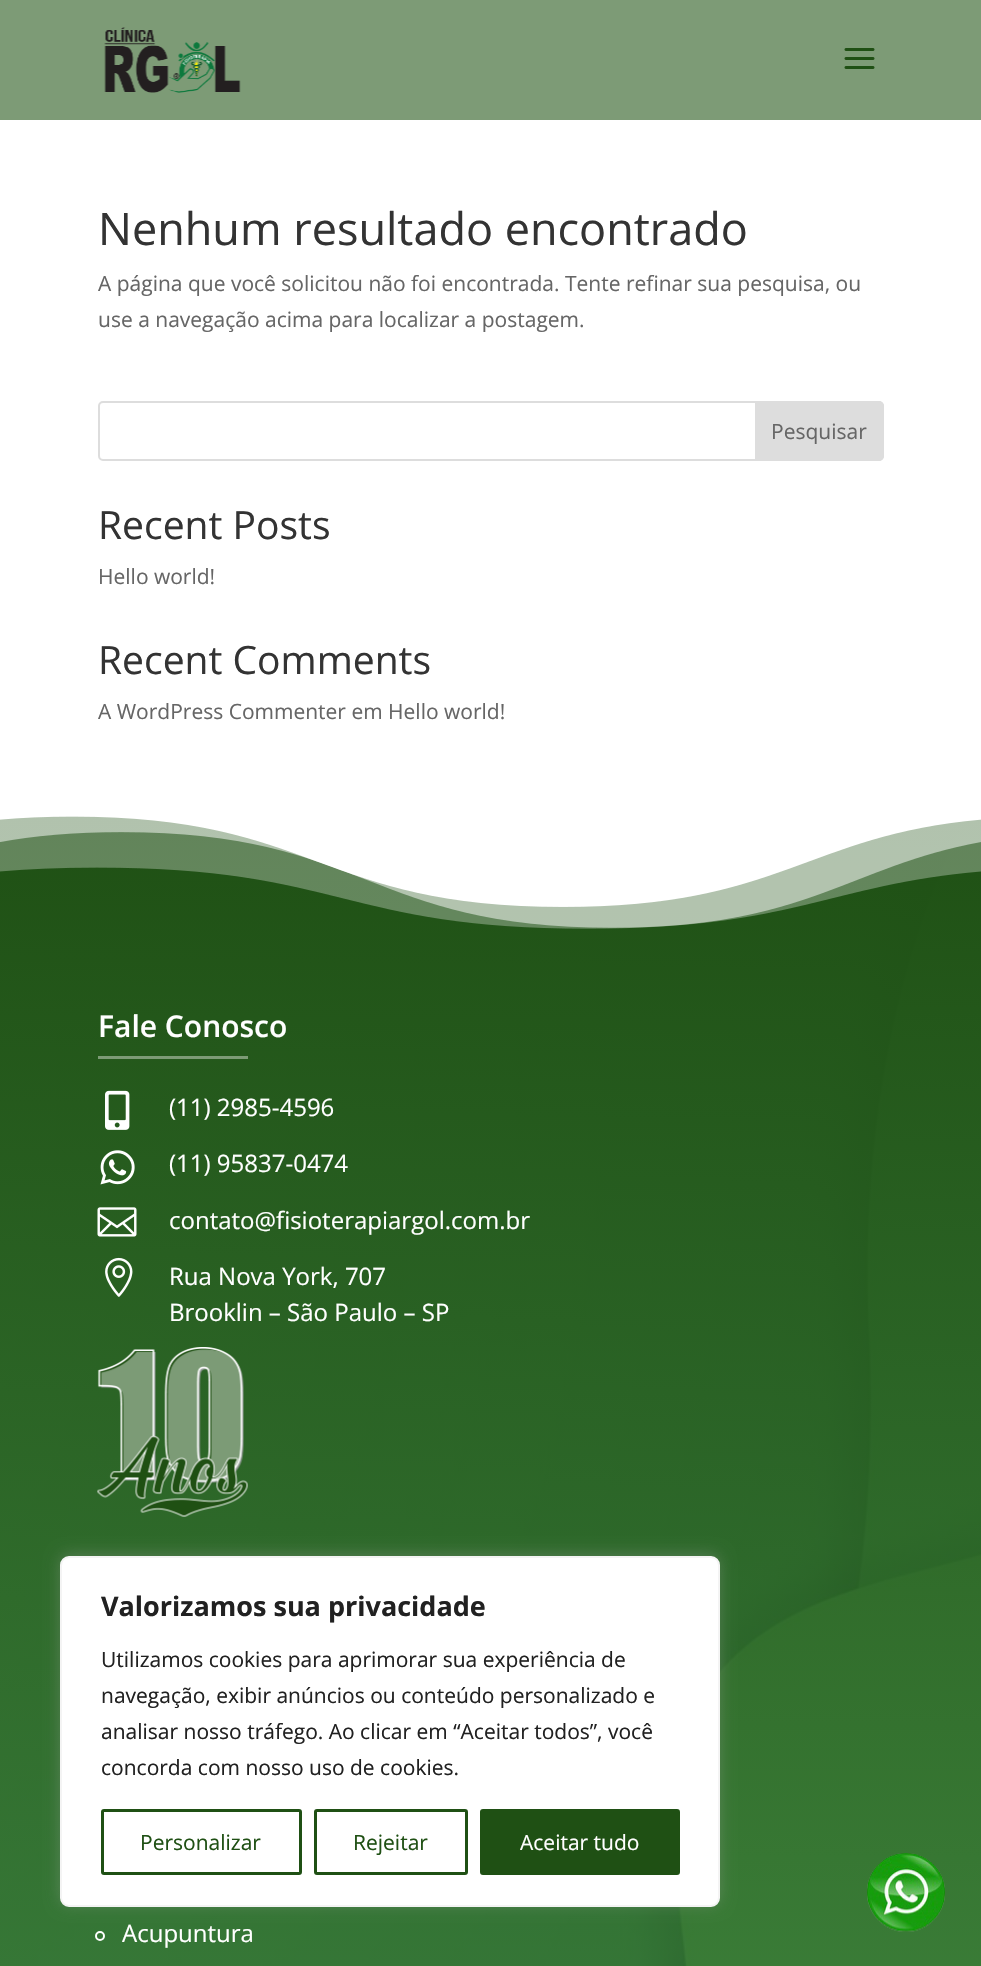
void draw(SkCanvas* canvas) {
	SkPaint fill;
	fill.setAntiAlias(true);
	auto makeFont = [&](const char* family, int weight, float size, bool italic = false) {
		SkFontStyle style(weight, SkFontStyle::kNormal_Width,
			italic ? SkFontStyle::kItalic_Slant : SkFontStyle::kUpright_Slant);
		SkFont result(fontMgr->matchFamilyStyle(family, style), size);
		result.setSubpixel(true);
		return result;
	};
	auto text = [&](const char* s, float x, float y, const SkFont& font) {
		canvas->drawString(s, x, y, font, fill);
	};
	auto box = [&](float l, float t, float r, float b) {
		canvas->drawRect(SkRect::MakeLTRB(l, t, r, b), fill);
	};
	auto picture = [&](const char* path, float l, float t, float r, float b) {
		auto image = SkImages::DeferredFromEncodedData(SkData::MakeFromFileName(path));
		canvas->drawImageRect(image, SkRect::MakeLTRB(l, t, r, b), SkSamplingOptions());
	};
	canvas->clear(0xFFFFFFFF);
	fill.setColor(0xFF7D9B76);
	box(0, 0, 981, 120);
	picture("image0.png", 104, 27, 241, 93);
	picture("image1.png", 844, 48, 875, 69);
	fill.setStyle(SkPaint::kStroke_Style);
	fill.setStrokeWidth(2);
	fill.setColor(0xFFDDDDDD);
	canvas->drawRoundRect(SkRect::MakeLTRB(99, 402, 883, 460), 4, 4, fill);
	fill.setStyle(SkPaint::kFill_Style);
	canvas->drawPath(SkPathBuilder().moveTo(756, 402).lineTo(879, 402).cubicTo(881, 402, 883, 404, 883, 406).lineTo(883, 456).cubicTo(883, 458, 881, 460, 879, 460).lineTo(756, 460).close().detach(), fill);
	fill.setStyle(SkPaint::kStroke_Style);
	canvas->drawPath(SkPathBuilder().moveTo(756, 402).lineTo(879, 402).cubicTo(881, 402, 883, 404, 883, 406).lineTo(883, 456).cubicTo(883, 458, 881, 460, 879, 460).lineTo(756, 460).close().detach(), fill);
	picture("image2.png", 0, 816, 981, 1966);
	picture("image3.png", 0, 816, 981, 929);
	fill.setStyle(SkPaint::kFill_Style);
	fill.setColor(0xFF7D9B76);
	box(98, 1056, 248, 1059);
	picture("image4.png", 105, 1090, 130, 1130);
	picture("image5.png", 100, 1150, 135, 1185);
	picture("image6.png", 97, 1207, 137, 1237);
	picture("image7.png", 105, 1257, 133, 1297);
	picture("image8.png", 97, 1347, 248, 1517);
	fill.setStyle(SkPaint::kStroke_Style);
	fill.setColor(0xFFFFFFFF);
	canvas->drawCircle(100, 1936, 4, fill);
	picture("image9.png", 867, 1853, 945, 1932);
	fill.setStyle(SkPaint::kFill_Style);
	fill.setColor(0x4DACABAB);
	fill.setMaskFilter(SkMaskFilter::MakeBlur(kNormal_SkBlurStyle, 7.5f));
	canvas->drawRoundRect(SkRect::MakeLTRB(60, 1554, 720, 1905), 9, 9, fill);
	fill.setMaskFilter(nullptr);
	fill.setColor(0xFFFFFFFF);
	canvas->drawRoundRect(SkRect::MakeLTRB(61, 1557, 719, 1906), 8, 8, fill);
	fill.setStyle(SkPaint::kStroke_Style);
	fill.setColor(0xFFF4F4F4);
	canvas->drawRoundRect(SkRect::MakeLTRB(61, 1557, 719, 1906), 8, 8, fill);
	fill.setStrokeWidth(3);
	fill.setColor(0xFF1F5014);
	canvas->drawRoundRect(SkRect::MakeLTRB(102.5f, 1810.5f, 300.5f, 1873.5f), 1.5f, 1.5f, fill);
	canvas->drawRoundRect(SkRect::MakeLTRB(315.5f, 1810.5f, 466.5f, 1873.5f), 1.5f, 1.5f, fill);
	fill.setStyle(SkPaint::kFill_Style);
	canvas->drawRoundRect(SkRect::MakeLTRB(481.5f, 1810.5f, 678.5f, 1873.5f), 1.5f, 1.5f, fill);
	fill.setStyle(SkPaint::kStroke_Style);
	canvas->drawRoundRect(SkRect::MakeLTRB(481.5f, 1810.5f, 678.5f, 1873.5f), 1.5f, 1.5f, fill);
	auto font1 = makeFont("Open Sans", 400, 45);
	fill.setStyle(SkPaint::kFill_Style);
	fill.setColor(0xFF333333);
	text("Nenhum resultado encontrado", 98, 245, font1);
	auto font2 = makeFont("Open Sans", 400, 21);
	fill.setColor(0xFF666666);
	text("A página que você solicitou não foi encontrada. Tente refinar sua pesquisa, ou", 98, 291, font2);
	text("use a navegação acima para localizar a postagem.", 98, 327, font2);
	text("Pesquisar", 771, 439, font2);
	auto font3 = makeFont("Open Sans", 400, 39);
	fill.setColor(0xFF333333);
	text("Recent Posts", 98, 539, font3);
	fill.setColor(0xFF666666);
	text("Hello world!", 98, 584, font2);
	fill.setColor(0xFF333333);
	text("Recent Comments", 98, 674, font3);
	fill.setColor(0xFF666666);
	text("A WordPress Commenter em Hello world!", 98, 719, font2);
	auto font4 = makeFont("Open Sans", 600, 30);
	fill.setColor(0xFFFFFFFF);
	text("Fale Conosco", 98, 1037, font4);
	auto font5 = makeFont("Open Sans", 400, 24);
	text("(11) 2985-4596", 169, 1116, font5);
	text("(11) 95837-0474", 169, 1172, font5);
	text("contato@fisioterapiargol.com.br", 169, 1229, font5);
	text("Rua Nova York, 707", 169, 1285, font5);
	text("Brooklin – São Paulo – SP", 169, 1321, font5);
	text("Acupuntura", 122, 1942, font5);
	auto font6 = makeFont("Open Sans", 700, 27);
	fill.setColor(0xFF212121);
	text("Valorizamos sua privacidade", 101, 1616, font6);
	text("Utilizamos cookies para aprimorar sua experiência de", 101, 1667, font2);
	text("navegação, exibir anúncios ou conteúdo personalizado e", 101, 1703, font2);
	text("analisar nosso tráfego. Ao clicar em “Aceitar todos”, você", 101, 1739, font2);
	text("concorda com nosso uso de cookies.", 101, 1775, font2);
	fill.setColor(0xFF1F5014);
	text("Personalizar", 140, 1850, font2);
	text("Rejeitar", 353, 1850, font2);
	fill.setColor(0xFFFFFFFF);
	text("Aceitar tudo", 520, 1850, font2);
}
